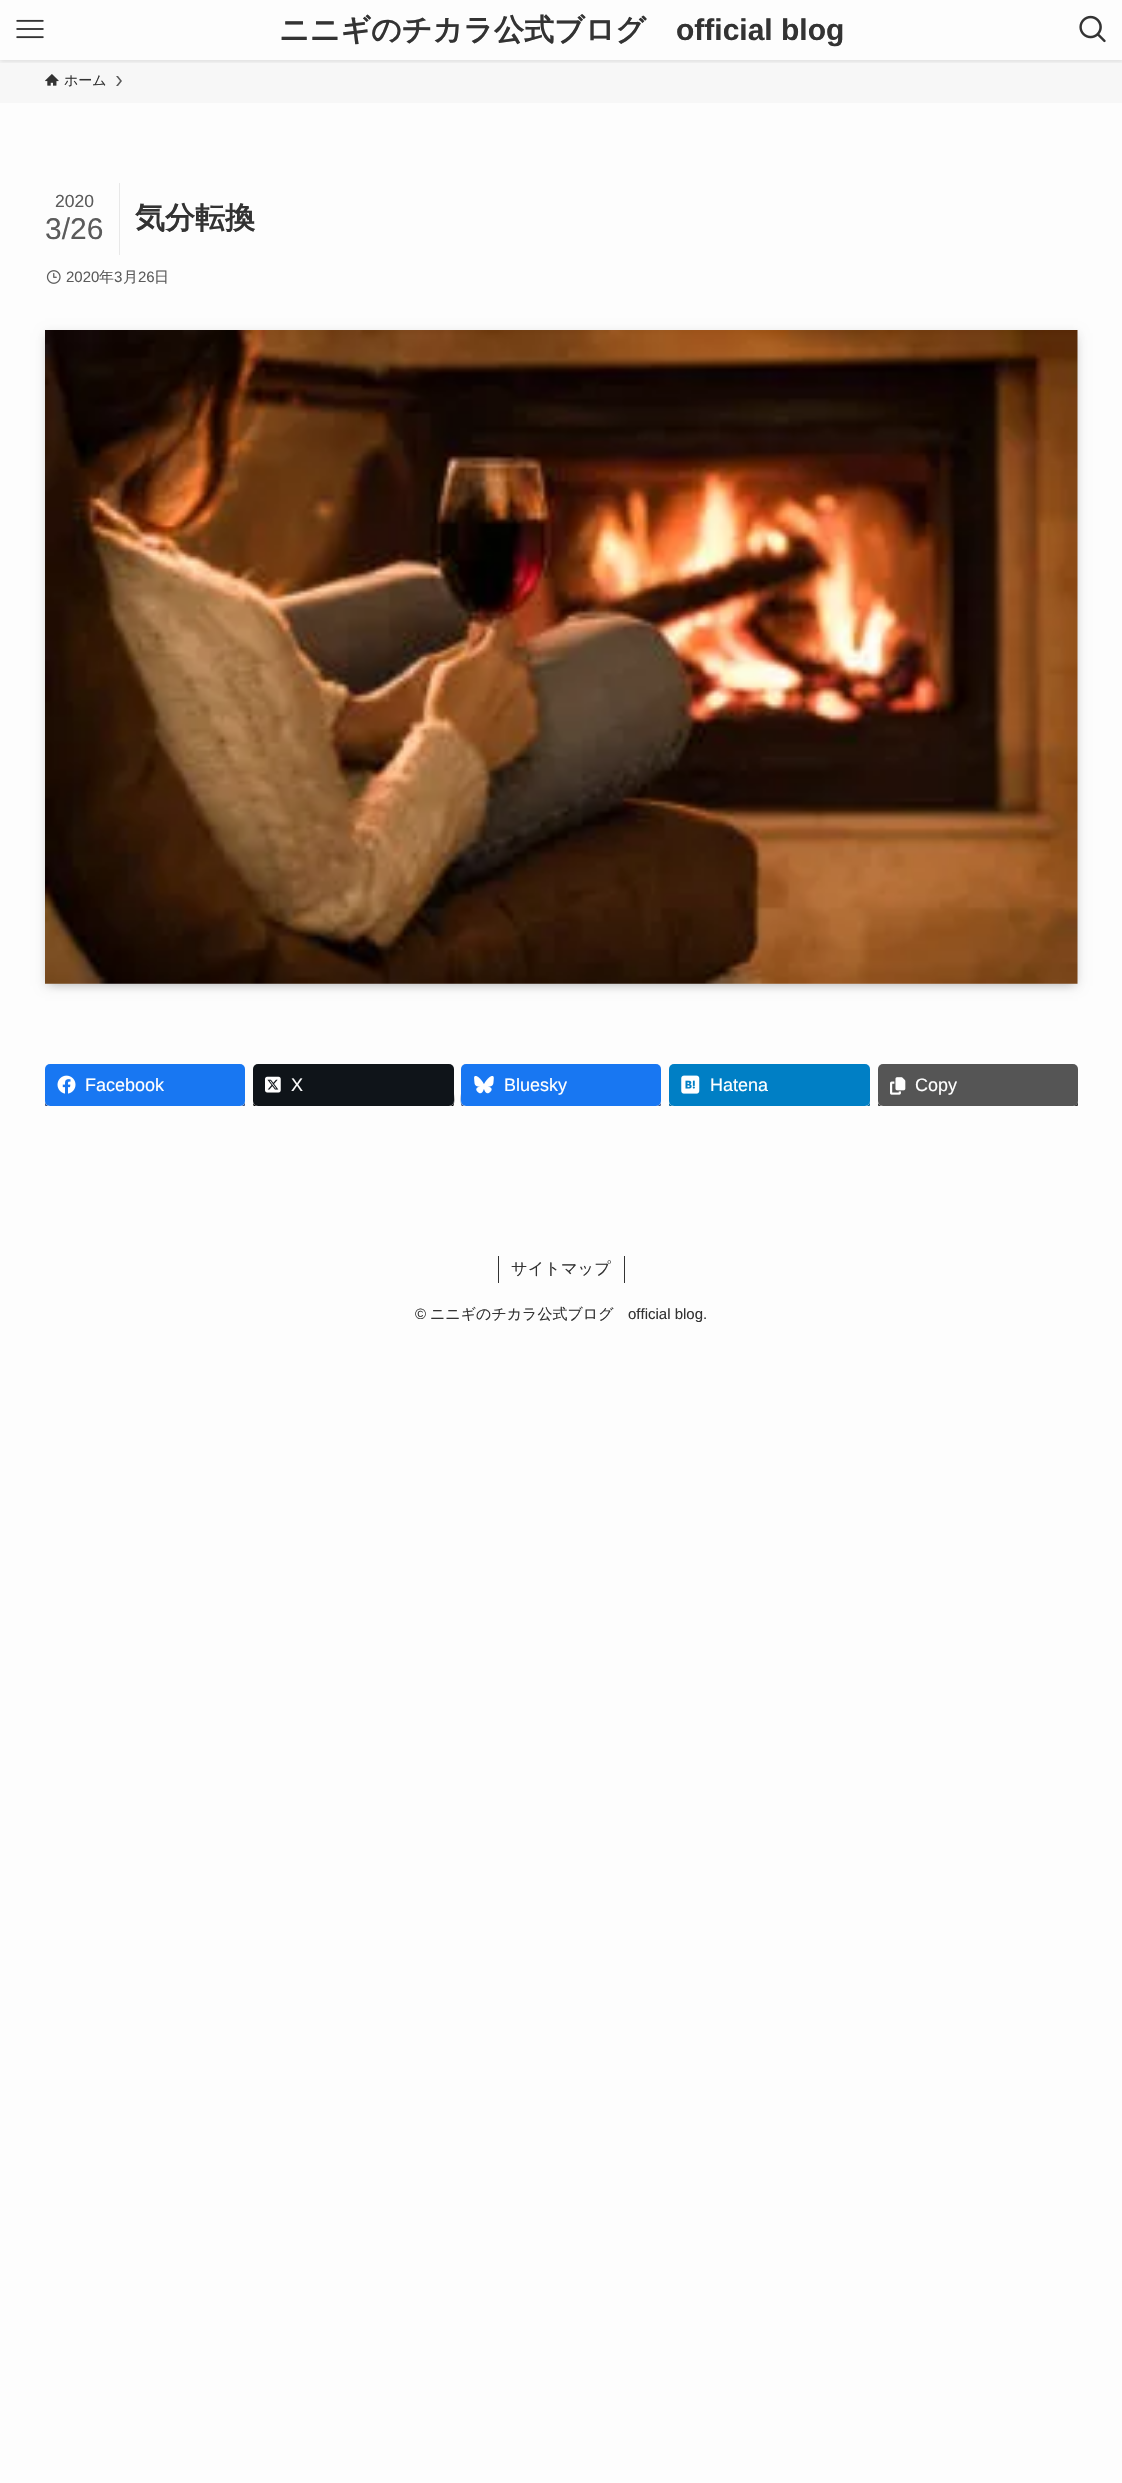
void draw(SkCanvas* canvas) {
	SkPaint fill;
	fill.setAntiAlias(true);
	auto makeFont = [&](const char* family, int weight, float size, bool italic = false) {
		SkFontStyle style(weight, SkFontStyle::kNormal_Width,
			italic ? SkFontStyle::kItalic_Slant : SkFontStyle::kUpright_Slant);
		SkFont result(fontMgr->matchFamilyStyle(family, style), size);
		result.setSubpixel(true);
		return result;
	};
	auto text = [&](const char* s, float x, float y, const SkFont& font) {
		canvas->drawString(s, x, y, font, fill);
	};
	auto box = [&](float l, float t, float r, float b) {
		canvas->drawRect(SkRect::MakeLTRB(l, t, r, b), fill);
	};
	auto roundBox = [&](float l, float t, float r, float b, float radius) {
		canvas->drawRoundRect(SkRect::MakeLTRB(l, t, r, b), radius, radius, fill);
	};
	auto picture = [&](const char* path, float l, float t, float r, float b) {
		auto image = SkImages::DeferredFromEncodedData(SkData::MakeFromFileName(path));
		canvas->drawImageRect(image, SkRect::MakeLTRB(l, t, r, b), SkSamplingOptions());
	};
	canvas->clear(0xFFFDFDFD);
	fill.setColor(0xFFF7F7F7);
	box(0, 60, 1122, 103);
	canvas->save();
	canvas->clipRect(SkRect::MakeLTRB(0, 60, 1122, 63));
	fill.setColor(0x1F000000);
	fill.setMaskFilter(SkMaskFilter::MakeBlur(kNormal_SkBlurStyle, 2.5f));
	canvas->drawRect(SkRect::MakeLTRB(0, 1, 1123, 61), fill);
	fill.setMaskFilter(nullptr);
	canvas->restore();
	picture("image0.png", 16, 19, 44, 39);
	picture("image1.png", 1079, 15, 1106, 43);
	picture("image2.png", 45, 74, 59, 86);
	fill.setColor(0xFF5A5A5A);
	canvas->drawPath(SkPathBuilder().moveTo(118, 76).lineTo(116, 76).lineTo(120, 81).lineTo(116, 86).lineTo(118, 86).lineTo(122, 81).close().detach(), fill);
	fill.setColor(0xFFE8E8E8);
	box(119, 183, 120, 255);
	picture("image3.png", 46, 270, 61, 284);
	fill.setColor(0x33000000);
	fill.setMaskFilter(SkMaskFilter::MakeBlur(kNormal_SkBlurStyle, 5));
	canvas->drawRect(SkRect::MakeLTRB(50, 340, 1073, 984), fill);
	fill.setMaskFilter(nullptr);
	fill.setColor(0x1A000000);
	fill.setMaskFilter(SkMaskFilter::MakeBlur(kNormal_SkBlurStyle, 5));
	canvas->drawRect(SkRect::MakeLTRB(45, 333, 1078, 986), fill);
	fill.setMaskFilter(nullptr);
	picture("image4.png", 45, 330, 1078, 984);
	canvas->save();
	canvas->clipRect(SkRect::MakeLTRB(45, 1064, 1078, 1106));
	fill.setColor(0xFF344E84);
	canvas->drawPath(SkPathBuilder().moveTo(45, 1101).lineTo(45, 1104).cubicTo(45, 1107, 47, 1109, 50, 1109).lineTo(240, 1109).cubicTo(243, 1109, 245, 1107, 245, 1104).lineTo(245, 1101).cubicTo(245, 1104, 243, 1106, 240, 1106).lineTo(50, 1106).cubicTo(47, 1106, 45, 1104, 45, 1101).close().detach(), fill);
	canvas->restore();
	fill.setColor(0xFF1877F2);
	roundBox(45, 1064, 245, 1106, 5);
	picture("image5.png", 57, 1075, 76, 1094);
	canvas->save();
	canvas->clipRect(SkRect::MakeLTRB(45, 1064, 1078, 1106));
	fill.setColor(0xFF000000);
	canvas->drawPath(SkPathBuilder().moveTo(253, 1103).cubicTo(253, 1115, 279, 1109, 290, 1109).lineTo(449, 1109).cubicTo(456, 1109, 454, 1097, 454, 1093).lineTo(454, 1069).lineTo(454, 1101).cubicTo(454, 1104, 452, 1106, 449, 1106).lineTo(258, 1106).cubicTo(256, 1106, 254, 1105, 253, 1103).close().detach(), fill);
	canvas->restore();
	fill.setColor(0xFF0F1419);
	roundBox(253, 1064, 454, 1106, 5);
	picture("image6.png", 265, 1076, 281, 1093);
	canvas->save();
	canvas->clipRect(SkRect::MakeLTRB(45, 1064, 1078, 1106));
	fill.setColor(0xFF344E84);
	canvas->drawPath(SkPathBuilder().moveTo(461, 1069).lineTo(461, 1093).cubicTo(461, 1097, 459, 1109, 466, 1109).lineTo(656, 1109).cubicTo(660, 1109, 661, 1106, 661, 1103).cubicTo(660, 1105, 658, 1106, 656, 1106).lineTo(466, 1106).cubicTo(463, 1106, 461, 1104, 461, 1101).close().detach(), fill);
	canvas->restore();
	fill.setColor(0xFF1877F2);
	roundBox(461, 1064, 661, 1106, 5);
	picture("image7.png", 474, 1076, 494, 1094);
	canvas->save();
	canvas->clipRect(SkRect::MakeLTRB(45, 1064, 1078, 1106));
	fill.setColor(0xFF00679F);
	canvas->drawPath(SkPathBuilder().moveTo(669, 1103).lineTo(669, 1104).cubicTo(669, 1107, 671, 1109, 674, 1109).lineTo(865, 1109).cubicTo(868, 1109, 870, 1107, 870, 1104).lineTo(870, 1101).cubicTo(870, 1104, 868, 1106, 865, 1106).lineTo(674, 1106).cubicTo(672, 1106, 670, 1105, 669, 1103).close().detach(), fill);
	canvas->restore();
	fill.setColor(0xFF007FC5);
	roundBox(669, 1064, 870, 1106, 5);
	picture("image8.png", 681, 1075, 700, 1094);
	canvas->save();
	canvas->clipRect(SkRect::MakeLTRB(45, 1064, 1078, 1106));
	fill.setColor(0xFF333333);
	canvas->drawPath(SkPathBuilder().moveTo(878, 1103).lineTo(878, 1104).cubicTo(878, 1107, 880, 1109, 883, 1109).lineTo(1073, 1109).cubicTo(1076, 1109, 1078, 1107, 1078, 1104).lineTo(1078, 1071).lineTo(1078, 1069).lineTo(1078, 1101).cubicTo(1078, 1104, 1075, 1106, 1072, 1106).lineTo(882, 1106).cubicTo(881, 1106, 879, 1105, 878, 1103).close().detach(), fill);
	canvas->restore();
	fill.setColor(0xFF555555);
	roundBox(878, 1064, 1078, 1106, 5);
	picture("image9.png", 890, 1077, 906, 1095);
	fill.setColor(0xFF333333);
	box(624, 1256, 625, 1283);
	box(498, 1256, 499, 1283);
	auto font1 = makeFont("WenQuanYi Zen Hei", 700, 30);
	text("ニニギのチカラ公式ブログ", 279, 40, font1);
	auto font2 = makeFont("Liberation Sans", 700, 30);
	text("official blog", 676, 40, font2);
	auto font3 = makeFont("WenQuanYi Zen Hei", 500, 14);
	text("ホーム", 64, 85, font3);
	auto font4 = makeFont("Liberation Sans", 400, 17.5f);
	fill.setColor(0xFF5B5B5B);
	text("2020", 55, 207, font4);
	auto font5 = makeFont("Liberation Sans", 400, 30);
	text("3/26", 45, 239, font5);
	fill.setColor(0xFF333333);
	text("気分転換", 135, 228, font1);
	auto font6 = makeFont("Liberation Sans", 400, 15);
	fill.setColor(0xFF5B5B5B);
	text("2020", 66, 282, font6);
	auto font7 = makeFont("WenQuanYi Zen Hei", 500, 15);
	text("年", 99, 282, font7);
	text("3", 114, 282, font6);
	text("月", 123, 282, font7);
	text("26", 138, 282, font6);
	text("日", 154, 282, font7);
	auto font8 = makeFont("Liberation Sans", 400, 18);
	fill.setColor(0xFFFFFFFF);
	text("Facebook", 85, 1091, font8);
	text("X", 291, 1091, font8);
	text("Bluesky", 504, 1091, font8);
	text("Hatena", 710, 1091, font8);
	text("Copy", 915, 1091, font8);
	auto font9 = makeFont("WenQuanYi Zen Hei", 500, 16.25f);
	fill.setColor(0xFF333333);
	text("サイトマップ", 511, 1274, font9);
	text("©", 415, 1319, font6);
	text("ニニギのチカラ公式ブログ", 430, 1319, font7);
	text("official blog.", 628, 1319, font6);
}
